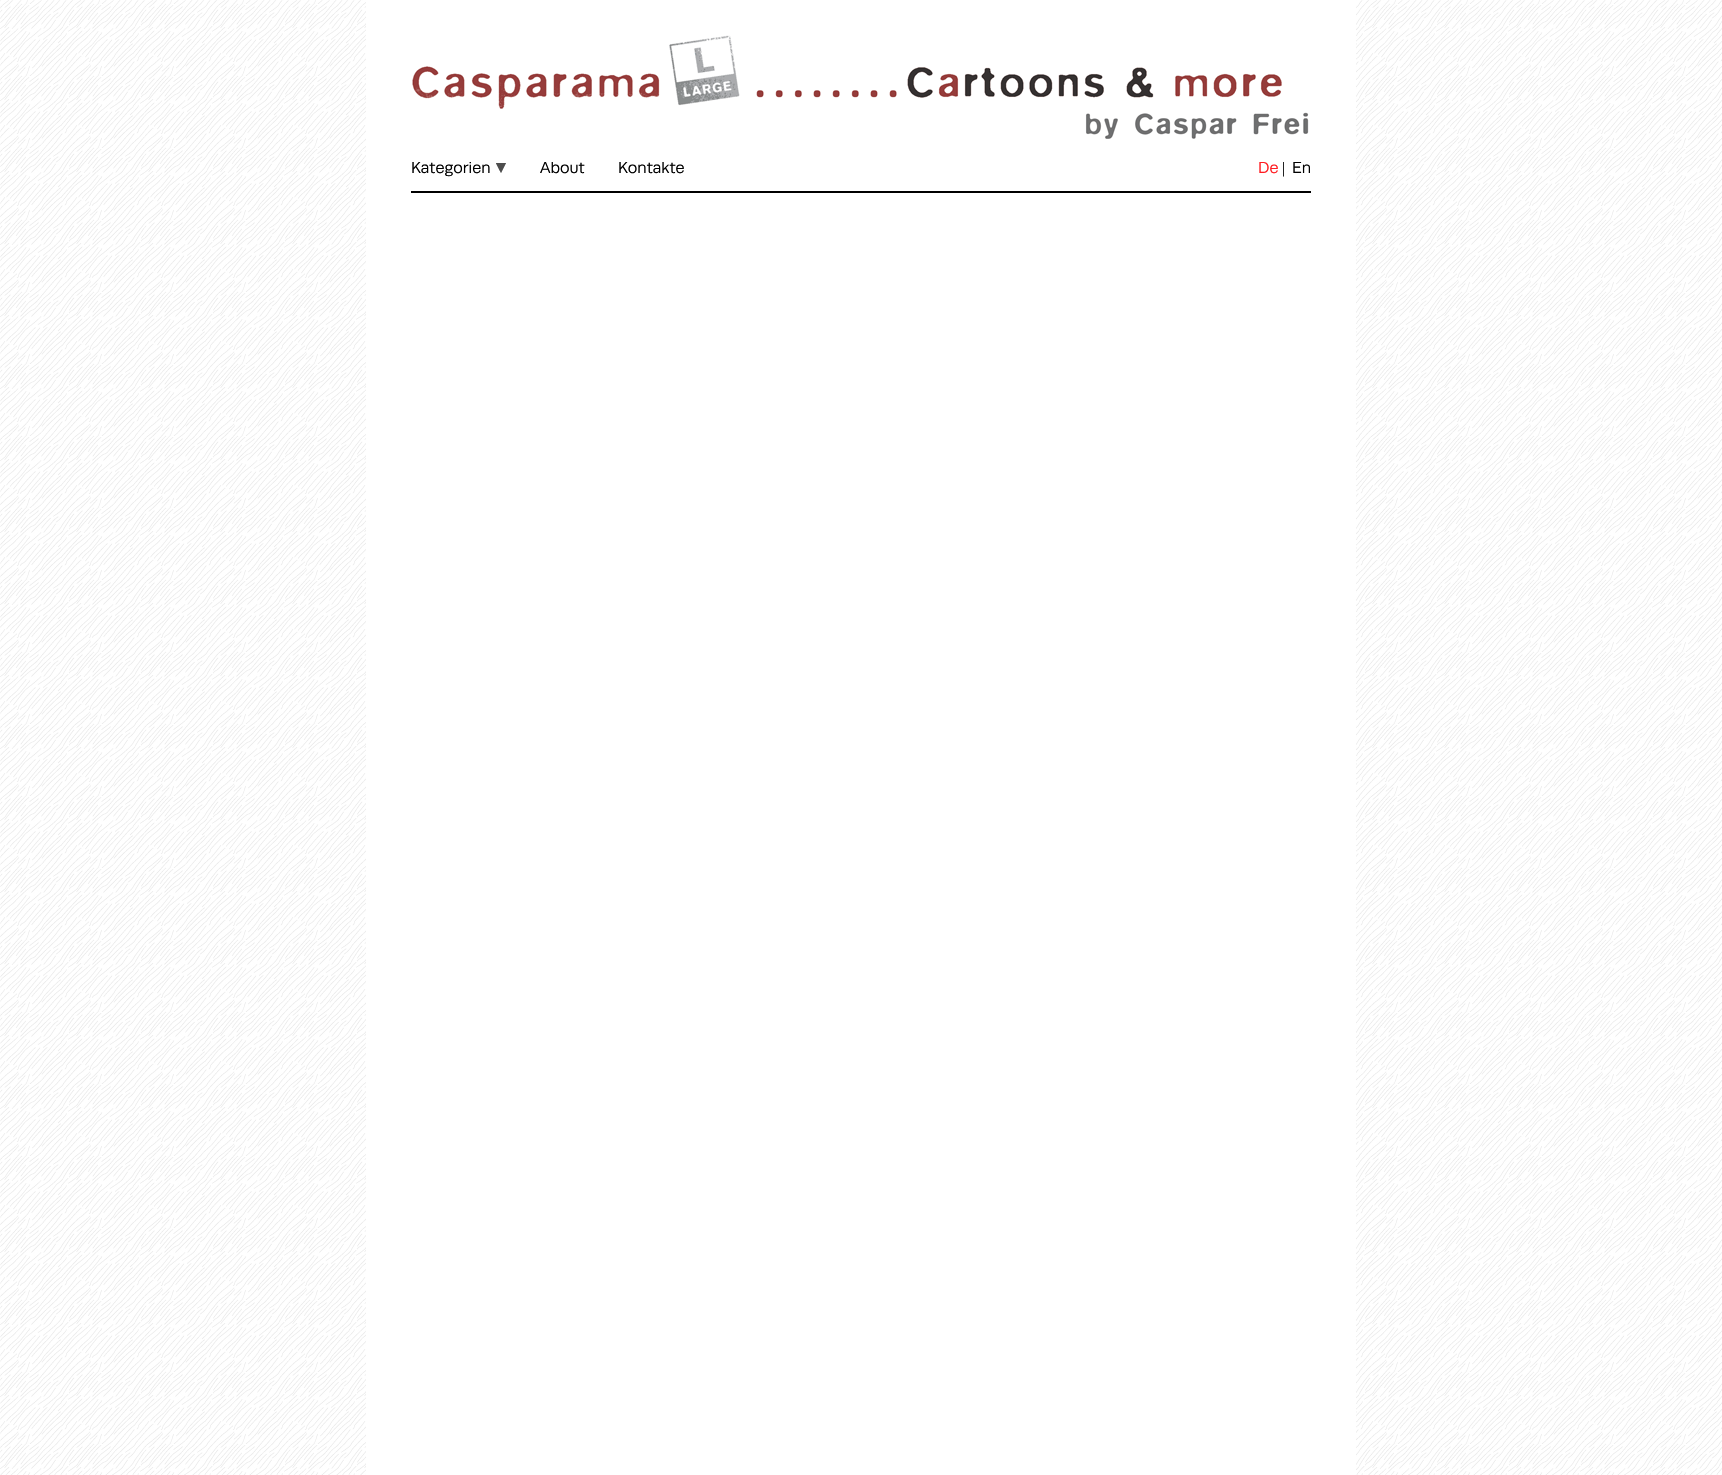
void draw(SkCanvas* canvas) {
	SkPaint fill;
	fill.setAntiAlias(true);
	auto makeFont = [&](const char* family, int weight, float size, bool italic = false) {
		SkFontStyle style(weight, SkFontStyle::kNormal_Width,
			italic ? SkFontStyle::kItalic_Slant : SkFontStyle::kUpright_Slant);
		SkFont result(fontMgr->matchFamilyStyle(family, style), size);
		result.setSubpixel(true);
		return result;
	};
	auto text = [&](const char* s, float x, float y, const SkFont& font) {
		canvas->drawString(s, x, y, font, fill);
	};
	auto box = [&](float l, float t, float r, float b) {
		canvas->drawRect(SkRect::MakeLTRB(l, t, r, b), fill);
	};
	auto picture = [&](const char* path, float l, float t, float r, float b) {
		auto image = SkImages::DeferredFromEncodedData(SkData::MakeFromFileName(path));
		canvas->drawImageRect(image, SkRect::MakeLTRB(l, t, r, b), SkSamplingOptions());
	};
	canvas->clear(0xFFFFFFFF);
	picture("image0.png", 0, 0, 1722, 1475);
	fill.setColor(0xFFFFFFFF);
	box(366, 0, 1356, 1475);
	fill.setColor(0xFF000000);
	box(411, 191, 1311, 193);
	picture("image1.png", 412, 35, 1309, 139);
	picture("image2.png", 496, 163, 506, 173);
	auto font1 = makeFont("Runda", 400, 16);
	text("Kategorien", 411, 173, font1);
	text("About", 540, 173, font1);
	text("Kontakte", 618, 173, font1);
	fill.setColor(0xFFFF1D22);
	text("De", 1258, 173, font1);
	auto font2 = makeFont("Liberation Serif", 400, 16);
	fill.setColor(0xFF000000);
	text("|", 1282, 173, font2);
	text("En", 1292, 173, font1);
}
